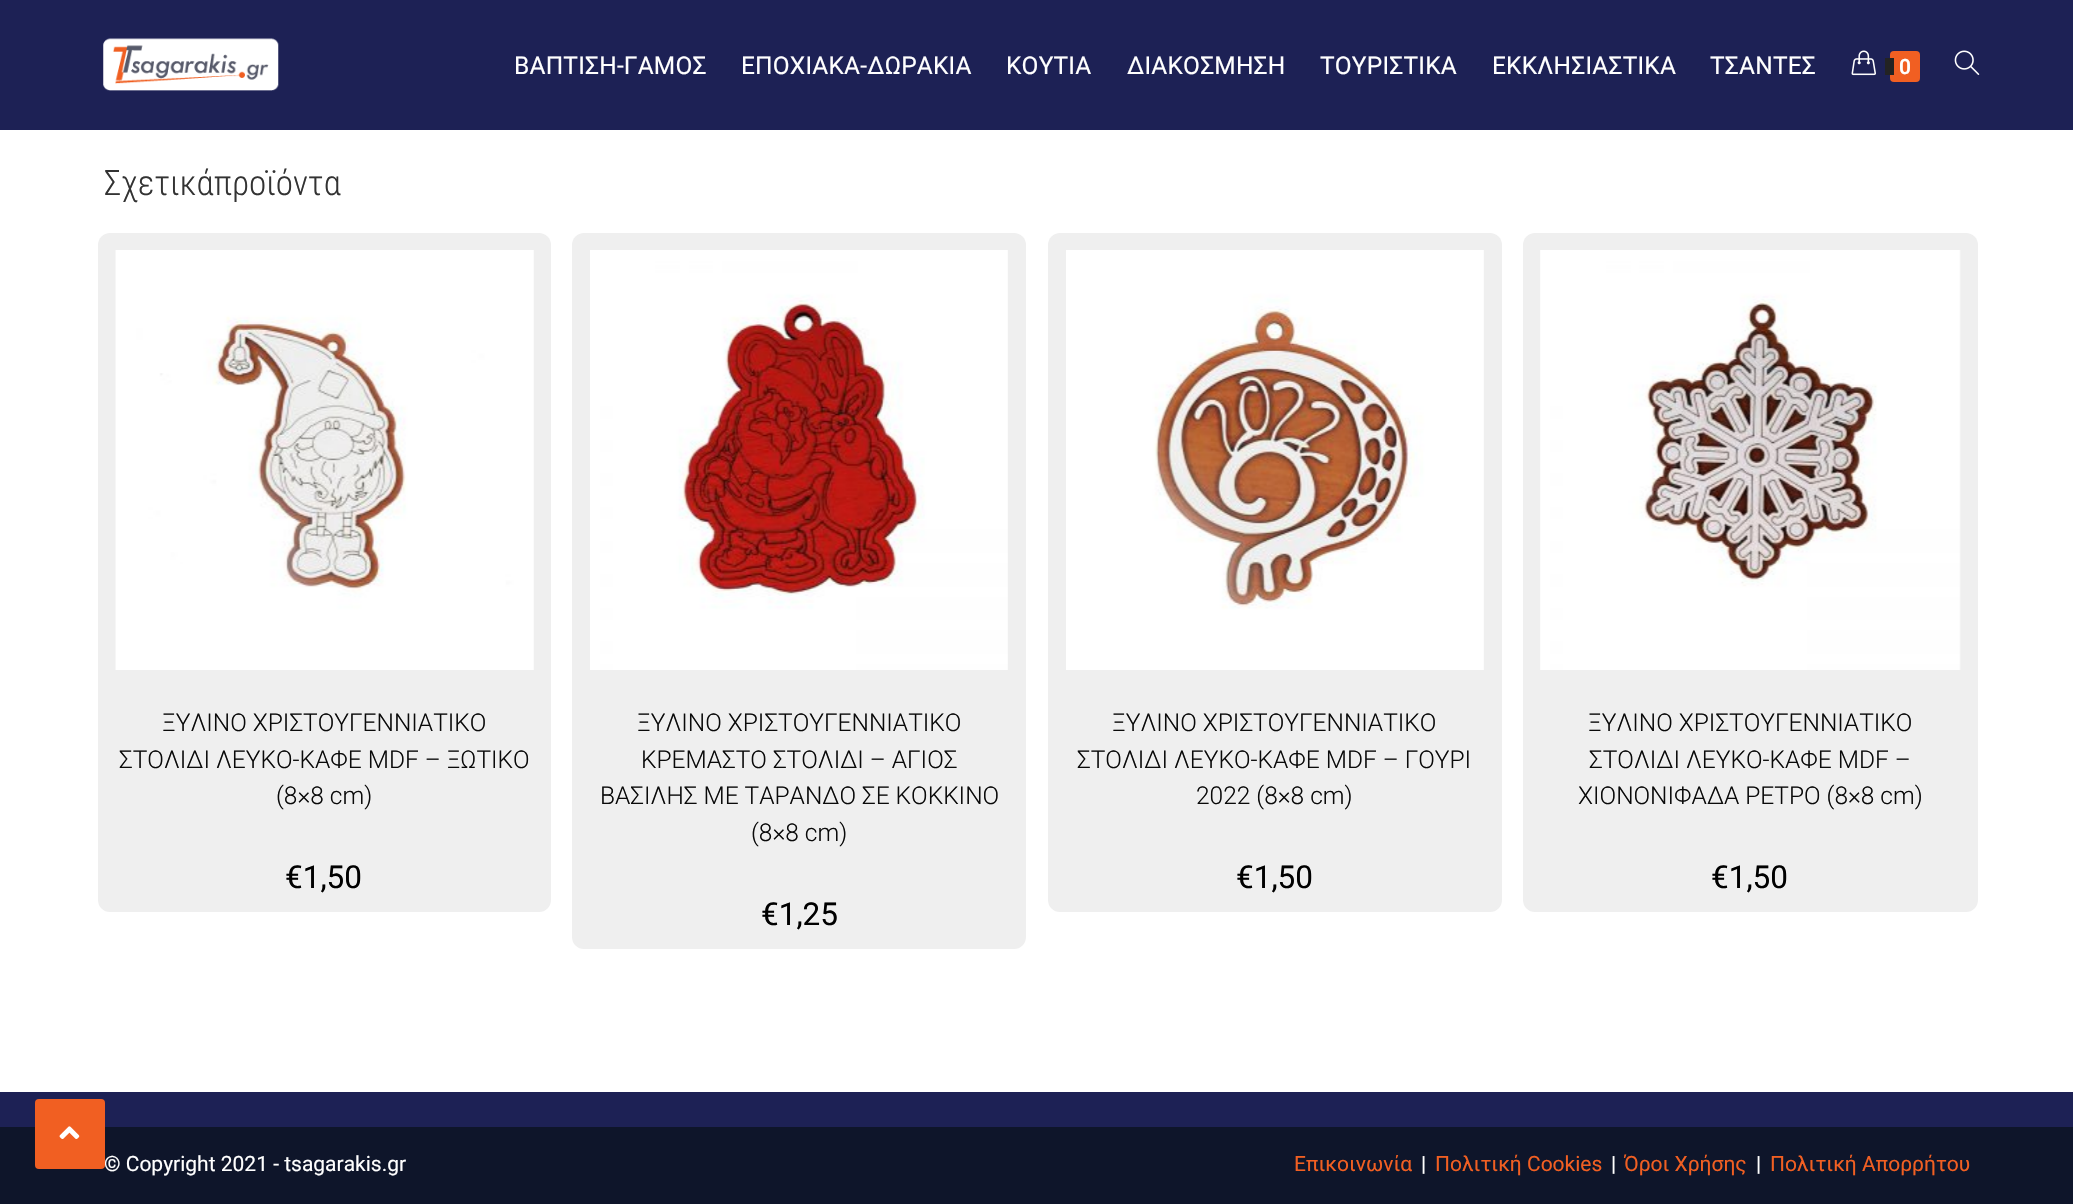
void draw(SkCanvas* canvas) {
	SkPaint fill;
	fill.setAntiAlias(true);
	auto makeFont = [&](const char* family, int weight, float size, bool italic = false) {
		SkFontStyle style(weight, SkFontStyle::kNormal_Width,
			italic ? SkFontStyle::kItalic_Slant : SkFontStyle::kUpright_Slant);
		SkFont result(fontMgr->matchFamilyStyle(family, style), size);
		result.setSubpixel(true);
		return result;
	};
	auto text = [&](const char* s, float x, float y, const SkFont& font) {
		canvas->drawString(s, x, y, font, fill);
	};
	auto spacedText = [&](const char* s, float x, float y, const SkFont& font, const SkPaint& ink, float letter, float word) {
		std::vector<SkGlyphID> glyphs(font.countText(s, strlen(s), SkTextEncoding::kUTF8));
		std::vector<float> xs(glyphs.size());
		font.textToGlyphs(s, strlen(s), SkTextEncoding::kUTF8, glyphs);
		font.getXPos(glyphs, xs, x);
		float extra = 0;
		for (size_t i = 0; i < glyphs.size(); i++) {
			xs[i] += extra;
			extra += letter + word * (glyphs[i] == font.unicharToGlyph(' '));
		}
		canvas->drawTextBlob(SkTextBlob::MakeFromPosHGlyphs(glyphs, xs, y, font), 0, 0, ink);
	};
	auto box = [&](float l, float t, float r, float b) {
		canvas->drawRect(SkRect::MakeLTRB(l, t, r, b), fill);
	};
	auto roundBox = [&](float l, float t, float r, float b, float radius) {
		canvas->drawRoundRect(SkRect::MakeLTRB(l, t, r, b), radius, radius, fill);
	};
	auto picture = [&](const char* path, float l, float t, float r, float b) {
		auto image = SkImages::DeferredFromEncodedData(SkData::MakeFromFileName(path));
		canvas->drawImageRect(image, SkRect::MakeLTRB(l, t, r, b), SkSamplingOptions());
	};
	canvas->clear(0xFF1D2155);
	picture("image1.png", 103, 38, 279, 91);
	picture("image2.png", 1851, 50, 1876, 76);
	fill.setColor(0xFFF15F22);
	roundBox(1890, 51, 1920, 82, 4);
	fill.setColor(0xFF232323);
	box(1885, 58, 1894, 75);
	picture("image3.png", 1954, 50, 1980, 75);
	fill.setColor(0xFFFFFFFF);
	box(0, 130, 2073, 1092);
	fill.setColor(0xFFEFEFEF);
	roundBox(98, 233, 551, 912, 12);
	picture("image4.png", 115, 250, 534, 670);
	roundBox(572, 233, 1026, 949, 12);
	picture("image5.png", 590, 250, 1008, 670);
	roundBox(1048, 233, 1502, 912, 12);
	picture("image6.png", 1066, 250, 1484, 670);
	roundBox(1523, 233, 1978, 912, 12);
	picture("image7.png", 1540, 250, 1961, 670);
	fill.setColor(0xFF0E152A);
	box(0, 1127, 2073, 1204);
	auto font1 = makeFont("Roboto", 400, 24.5f);
	fill.setColor(0xFFFFFFFF);
	spacedText("ΒΑΠΤΙΣΗ-ΓΑΜΟΣ", 514, 74, font1, fill, 0.2f, 0);
	spacedText("ΕΠΟΧΙΑΚΑ-ΔΩΡΑΚΙΑ", 741, 74, font1, fill, 0.2f, 0);
	spacedText("ΚΟΥΤΙΑ", 1006, 74, font1, fill, 0.2f, 0);
	spacedText("ΔΙΑΚΟΣΜΗΣΗ", 1127, 74, font1, fill, 0.2f, 0);
	spacedText("ΤΟΥΡΙΣΤΙΚΑ", 1320, 74, font1, fill, 0.2f, 0);
	spacedText("ΕΚΚΛΗΣΙΑΣΤΙΚΑ", 1492, 74, font1, fill, 0.2f, 0);
	spacedText("ΤΣΑΝΤΕΣ", 1710, 74, font1, fill, 0.2f, 0);
	auto font2 = makeFont("Roboto", 600, 21);
	text("0", 1899, 74, font2);
	auto font3 = makeFont("Roboto Condensed", 300, 35);
	fill.setColor(0xFF333333);
	text("Σχετικά προϊόντα", 104, 195, font3);
	auto font4 = makeFont("Roboto", 300, 24.5f);
	fill.setColor(0xFF0A0A0A);
	text("ΞΥΛΙΝΟ ΧΡΙΣΤΟΥΓΕΝΝΙΑΤΙΚΟ", 162, 731, font4);
	text("ΣΤΟΛΙΔΙ ΛΕΥΚΟ-ΚΑΦΕ MDF – ΞΩΤΙΚΟ", 119, 768, font4);
	text("(8×8 cm)", 276, 804, font4);
	auto font5 = makeFont("Roboto", 400, 31.5f);
	fill.setColor(0xFF000000);
	text("€1,50", 285, 888, font5);
	fill.setColor(0xFF0A0A0A);
	text("ΞΥΛΙΝΟ ΧΡΙΣΤΟΥΓΕΝΝΙΑΤΙΚΟ", 637, 731, font4);
	text("ΚΡΕΜΑΣΤΟ ΣΤΟΛΙΔΙ – ΑΓΙΟΣ", 641, 768, font4);
	text("ΒΑΣΙΛΗΣ ΜΕ ΤΑΡΑΝΔΟ ΣΕ ΚΟΚΚΙΝΟ", 600, 804, font4);
	text("(8×8 cm)", 751, 841, font4);
	fill.setColor(0xFF000000);
	text("€1,25", 761, 925, font5);
	fill.setColor(0xFF0A0A0A);
	text("ΞΥΛΙΝΟ ΧΡΙΣΤΟΥΓΕΝΝΙΑΤΙΚΟ", 1112, 731, font4);
	text("ΣΤΟΛΙΔΙ ΛΕΥΚΟ-ΚΑΦΕ MDF – ΓΟΥΡΙ", 1077, 768, font4);
	text("2022 (8×8 cm)", 1196, 804, font4);
	fill.setColor(0xFF000000);
	text("€1,50", 1236, 888, font5);
	fill.setColor(0xFF0A0A0A);
	text("ΞΥΛΙΝΟ ΧΡΙΣΤΟΥΓΕΝΝΙΑΤΙΚΟ", 1588, 731, font4);
	text("ΣΤΟΛΙΔΙ ΛΕΥΚΟ-ΚΑΦΕ MDF –", 1589, 768, font4);
	text("ΧΙΟΝΟΝΙΦΑΔΑ ΡΕΤΡΟ (8×8 cm)", 1578, 804, font4);
	fill.setColor(0xFF000000);
	text("€1,50", 1711, 888, font5);
	auto font6 = makeFont("Roboto", 400, 21);
	fill.setColor(0xFFFFFFFF);
	text("© Copyright 2021 - tsagarakis.gr", 104, 1171, font6);
	fill.setColor(0xFFF15F22);
	roundBox(35, 1099, 105, 1169, 4);
	picture("image0.png", 59, 1126, 80, 1139);
	text("Επικοινωνία", 1294, 1171, font6);
	fill.setColor(0xFFFFFFFF);
	text("|", 1421, 1171, font6);
	fill.setColor(0xFFF15F22);
	text("Πολιτική Cookies", 1435, 1171, font6);
	fill.setColor(0xFFFFFFFF);
	text("|", 1611, 1171, font6);
	fill.setColor(0xFFF15F22);
	text("Όροι Χρήσης", 1624, 1171, font6);
	fill.setColor(0xFFFFFFFF);
	text("|", 1756, 1171, font6);
	fill.setColor(0xFFF15F22);
	text("Πολιτική Απορρήτου", 1770, 1171, font6);
}
